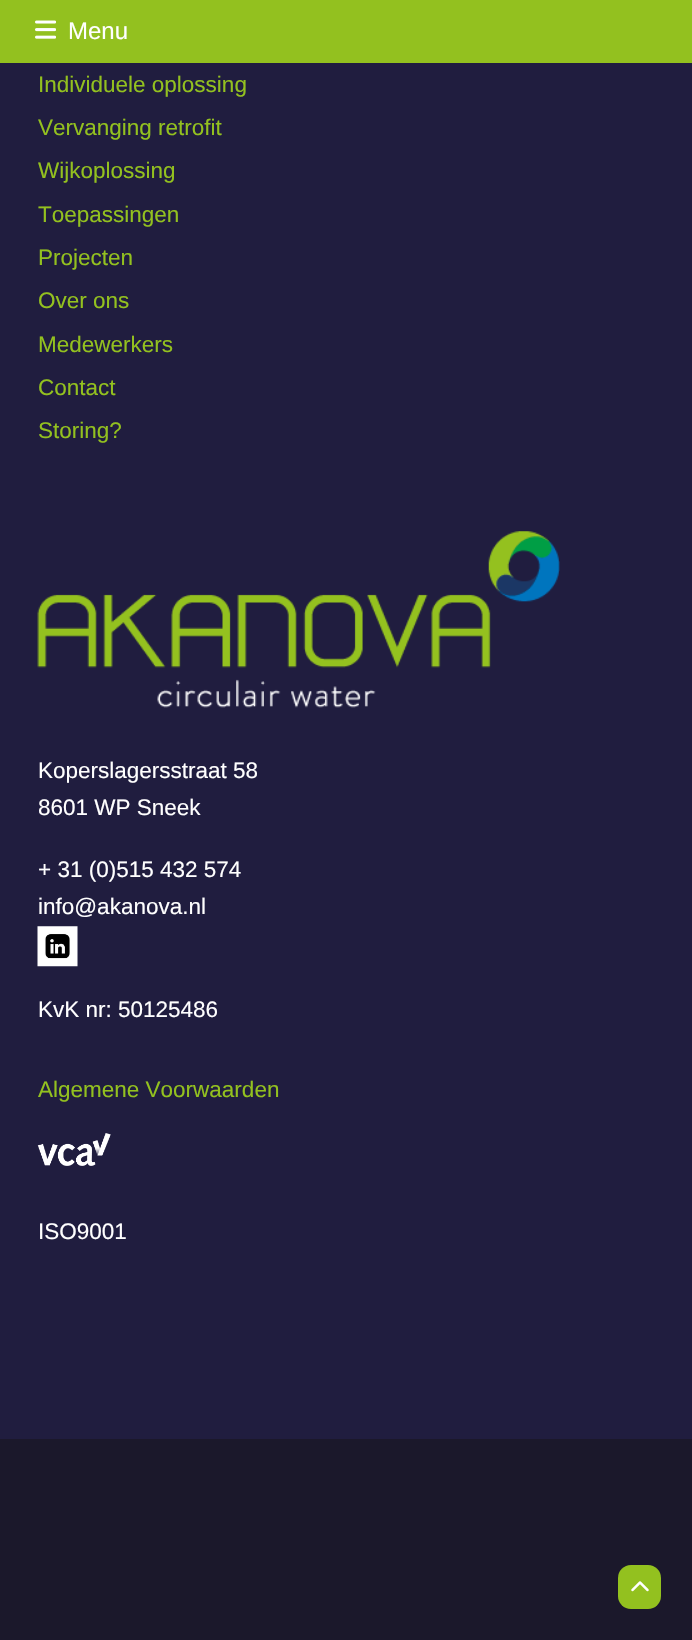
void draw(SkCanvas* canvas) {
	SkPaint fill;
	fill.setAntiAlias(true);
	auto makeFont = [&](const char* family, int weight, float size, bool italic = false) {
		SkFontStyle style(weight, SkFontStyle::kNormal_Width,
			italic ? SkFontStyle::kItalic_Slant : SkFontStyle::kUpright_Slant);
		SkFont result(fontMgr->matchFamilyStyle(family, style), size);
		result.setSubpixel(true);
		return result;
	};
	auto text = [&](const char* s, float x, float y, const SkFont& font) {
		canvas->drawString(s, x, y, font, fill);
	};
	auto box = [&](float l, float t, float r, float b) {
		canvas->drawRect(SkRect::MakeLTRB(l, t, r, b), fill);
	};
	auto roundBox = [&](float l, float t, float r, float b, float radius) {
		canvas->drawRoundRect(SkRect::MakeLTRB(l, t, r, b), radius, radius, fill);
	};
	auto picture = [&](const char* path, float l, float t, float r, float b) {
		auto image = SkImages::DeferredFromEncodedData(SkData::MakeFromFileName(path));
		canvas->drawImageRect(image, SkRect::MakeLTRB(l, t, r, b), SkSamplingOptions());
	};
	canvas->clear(0xFF201D3F);
	fill.setColor(0xFF93C11F);
	box(0, 0, 692, 63);
	picture("image0.png", 35, 20, 56, 39);
	picture("image1.png", 37, 531, 560, 708);
	picture("image2.png", 37, 926, 78, 967);
	picture("image3.png", 37, 1133, 111, 1166);
	fill.setColor(0xFF1B182B);
	box(0, 1439, 692, 1640);
	fill.setColor(0xFF93C11F);
	roundBox(618, 1565, 661, 1609, 13);
	picture("image4.png", 631, 1581, 649, 1592);
	auto font1 = makeFont("Liberation Sans", 400, 24);
	fill.setColor(0xFFFFFFFF);
	text("Menu", 68, 39, font1);
	auto font2 = makeFont("Liberation Sans", 400, 22.5f);
	fill.setColor(0xFF93C11F);
	text("Individuele oplossing", 38, 92, font2);
	text("Vervanging retrofit", 38, 135, font2);
	text("Wijkoplossing", 38, 178, font2);
	text("Toepassingen", 38, 222, font2);
	text("Projecten", 38, 265, font2);
	text("Over ons", 38, 308, font2);
	text("Medewerkers", 38, 352, font2);
	text("Contact", 38, 395, font2);
	text("Storing?", 38, 438, font2);
	fill.setColor(0xFFFFFFFF);
	text("Koperslagersstraat 58", 38, 778, font2);
	text("8601 WP Sneek", 38, 815, font2);
	text("+ 31 (0)515 432 574", 38, 877, font2);
	text("info@akanova.nl", 38, 914, font2);
	text("KvK nr: 50125486", 38, 1017, font2);
	fill.setColor(0xFF93C11F);
	text("Algemene Voorwaarden", 38, 1097, font2);
	fill.setColor(0xFFFFFFFF);
	text("ISO9001", 38, 1239, font2);
}
